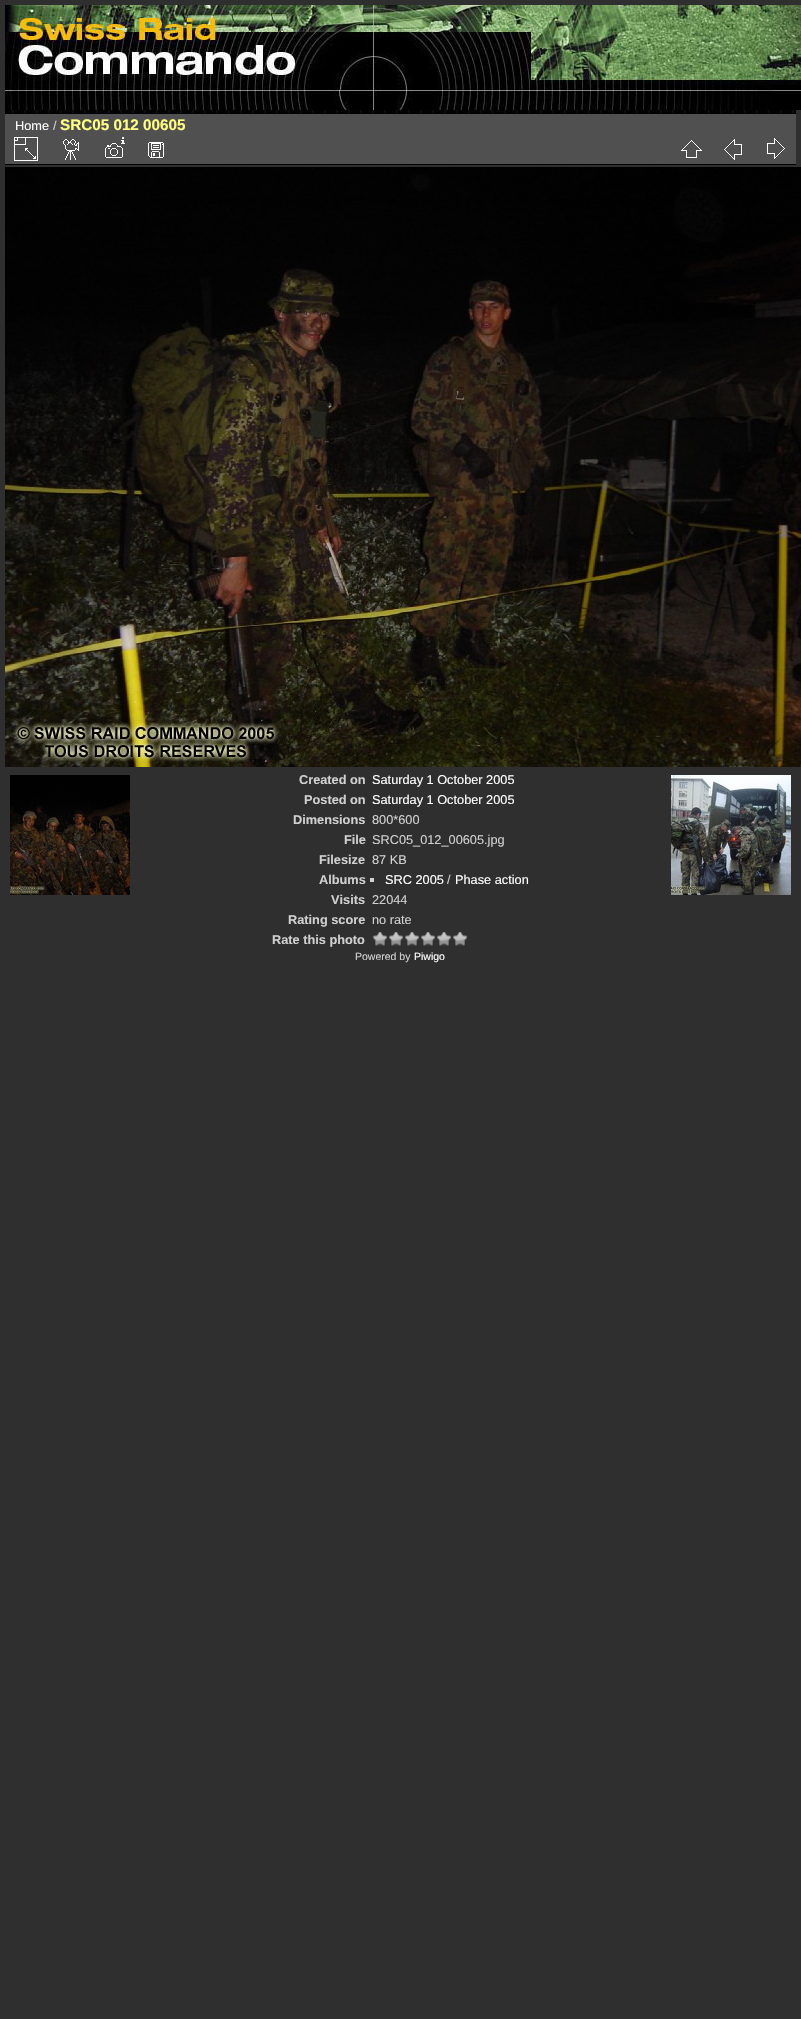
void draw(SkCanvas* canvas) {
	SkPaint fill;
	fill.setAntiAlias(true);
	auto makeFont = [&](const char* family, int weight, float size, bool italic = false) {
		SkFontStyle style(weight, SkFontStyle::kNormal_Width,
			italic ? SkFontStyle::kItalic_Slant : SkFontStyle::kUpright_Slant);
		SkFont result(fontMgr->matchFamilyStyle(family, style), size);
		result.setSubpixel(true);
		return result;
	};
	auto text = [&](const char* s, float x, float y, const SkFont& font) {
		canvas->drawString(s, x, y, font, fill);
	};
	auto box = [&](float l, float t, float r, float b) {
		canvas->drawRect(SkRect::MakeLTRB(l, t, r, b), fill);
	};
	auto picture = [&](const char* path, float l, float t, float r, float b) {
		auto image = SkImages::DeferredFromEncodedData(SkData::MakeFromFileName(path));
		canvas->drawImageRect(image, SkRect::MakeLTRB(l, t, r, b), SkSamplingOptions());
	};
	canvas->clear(0xFF2F2F2F);
	picture("image0.png", 5, 110, 796, 113);
	picture("image1.png", 5, 5, 801, 110);
	fill.setColor(0xFF505050);
	box(5, 114, 796, 164);
	fill.setColor(0xFF000000);
	box(5, 164, 796, 165);
	picture("image2.png", 14, 137, 38, 161);
	picture("image3.png", 63, 139, 79, 160);
	picture("image4.png", 105, 137, 125, 158);
	picture("image5.png", 148, 142, 164, 158);
	picture("image6.png", 681, 140, 702, 158);
	picture("image7.png", 724, 139, 742, 160);
	picture("image8.png", 767, 138, 785, 159);
	box(5, 113, 796, 114);
	picture("image9.png", 5, 167, 801, 767);
	fill.setColor(0xFFD0D0D0);
	box(370, 878, 374, 882);
	picture("image10.png", 372, 932, 388, 946);
	picture("image10.png", 388, 932, 404, 946);
	picture("image10.png", 404, 932, 420, 946);
	picture("image10.png", 420, 932, 436, 946);
	picture("image10.png", 436, 932, 452, 946);
	picture("image10.png", 452, 932, 468, 946);
	picture("image11.png", 10, 775, 130, 895);
	picture("image12.png", 671, 775, 791, 895);
	auto font1 = makeFont("Liberation Sans", 400, 12.75f);
	fill.setColor(0xFFFFFFFF);
	text("Home", 15, 130, font1);
	fill.setColor(0xFFD0D0D0);
	text("/", 53, 130, font1);
	auto font2 = makeFont("Liberation Sans", 700, 15.25f);
	fill.setColor(0xFFFFFF80);
	text("SRC05 012 00605", 60, 130, font2);
	auto font3 = makeFont("Liberation Sans", 700, 12.75f);
	fill.setColor(0xFFD0D0D0);
	text("Created on", 299, 784, font3);
	fill.setColor(0xFFFFFFFF);
	text("Saturday 1 October 2005", 372, 784, font1);
	fill.setColor(0xFFD0D0D0);
	text("Posted on", 304, 804, font3);
	fill.setColor(0xFFFFFFFF);
	text("Saturday 1 October 2005", 372, 804, font1);
	fill.setColor(0xFFD0D0D0);
	text("Dimensions", 293, 824, font3);
	text("800*600", 372, 824, font1);
	text("File", 344, 844, font3);
	text("SRC05_012_00605.jpg", 372, 844, font1);
	text("Filesize", 319, 864, font3);
	text("87 KB", 372, 864, font1);
	text("Albums", 319, 884, font3);
	fill.setColor(0xFFFFFFFF);
	text("SRC 2005", 385, 884, font1);
	fill.setColor(0xFFD0D0D0);
	text("/", 447, 884, font1);
	fill.setColor(0xFFFFFFFF);
	text("Phase action", 455, 884, font1);
	fill.setColor(0xFFD0D0D0);
	text("Visits", 331, 904, font3);
	text("22044", 372, 904, font1);
	text("Rating score", 288, 924, font3);
	text("no rate", 372, 924, font1);
	text("Rate this photo", 272, 944, font3);
	auto font4 = makeFont("Liberation Sans", 400, 10.5f);
	text("Powered by", 355, 960, font4);
	fill.setColor(0xFFFFFFFF);
	text("Piwigo", 414, 960, font4);
}
